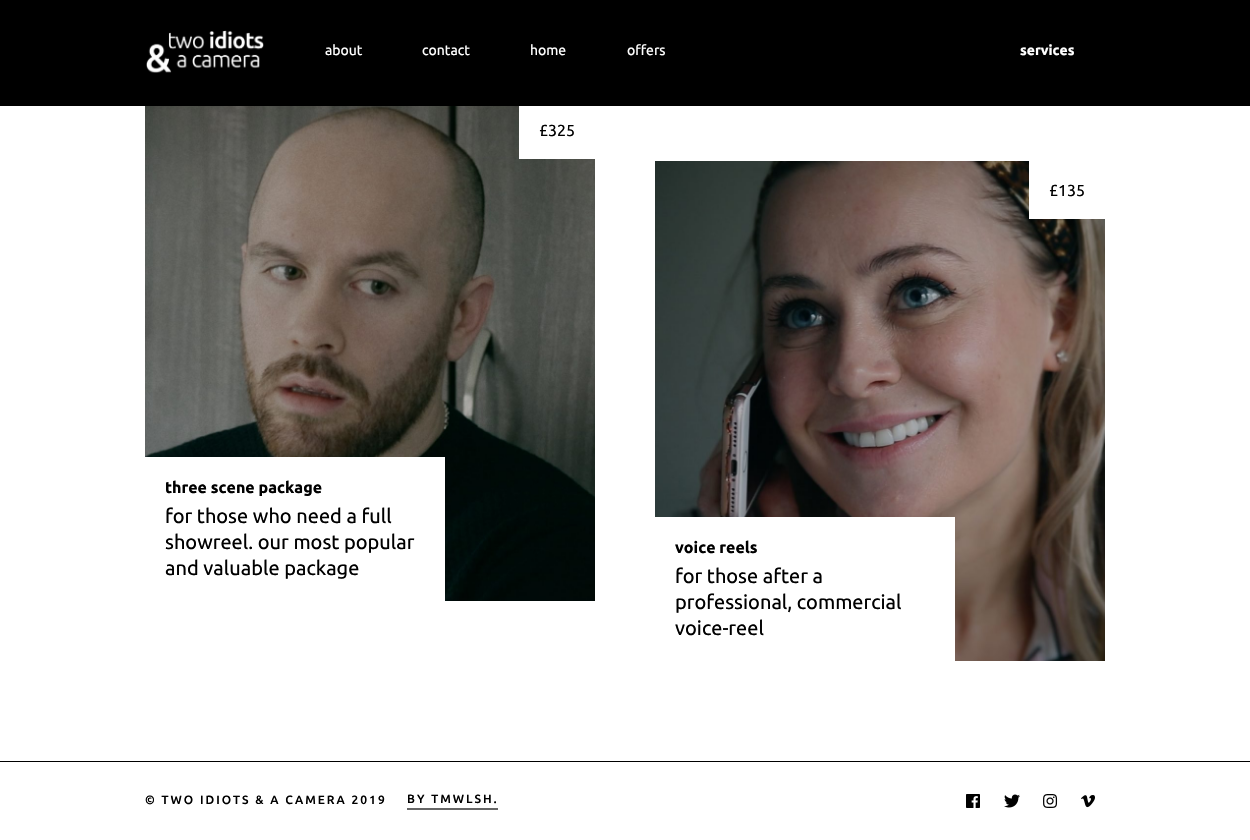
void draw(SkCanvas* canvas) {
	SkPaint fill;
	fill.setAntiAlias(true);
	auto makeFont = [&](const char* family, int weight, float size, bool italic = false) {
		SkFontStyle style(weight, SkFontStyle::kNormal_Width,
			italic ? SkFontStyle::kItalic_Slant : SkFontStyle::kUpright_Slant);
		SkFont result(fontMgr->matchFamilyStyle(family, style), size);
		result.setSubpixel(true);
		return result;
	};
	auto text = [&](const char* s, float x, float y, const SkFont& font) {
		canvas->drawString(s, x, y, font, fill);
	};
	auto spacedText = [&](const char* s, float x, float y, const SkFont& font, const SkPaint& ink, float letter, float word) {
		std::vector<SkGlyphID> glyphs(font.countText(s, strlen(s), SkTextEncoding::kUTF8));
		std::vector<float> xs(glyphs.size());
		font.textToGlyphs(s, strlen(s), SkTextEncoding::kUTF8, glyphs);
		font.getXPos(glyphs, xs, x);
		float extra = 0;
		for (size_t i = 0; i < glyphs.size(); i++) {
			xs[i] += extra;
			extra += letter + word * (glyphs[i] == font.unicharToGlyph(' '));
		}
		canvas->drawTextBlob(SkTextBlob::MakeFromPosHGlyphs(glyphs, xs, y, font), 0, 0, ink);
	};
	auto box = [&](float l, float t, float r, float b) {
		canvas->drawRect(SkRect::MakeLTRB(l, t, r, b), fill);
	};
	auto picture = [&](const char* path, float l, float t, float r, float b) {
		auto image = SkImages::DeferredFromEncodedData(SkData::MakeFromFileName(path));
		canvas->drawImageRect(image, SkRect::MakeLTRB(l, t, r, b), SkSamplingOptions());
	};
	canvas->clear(0xFFFFFFFF);
	fill.setColor(0xFF000000);
	box(0, 0, 1250, 106);
	picture("image0.png", 146, 30, 264, 73);
	picture("image1.png", 145, 106, 595, 601);
	fill.setColor(0xFFFFFFFF);
	box(519, 106, 595, 159);
	box(145, 457, 445, 601);
	picture("image2.png", 655, 161, 1105, 661);
	box(1029, 161, 1105, 219);
	box(655, 517, 955, 661);
	fill.setColor(0xFF000000);
	box(0, 761, 1250, 762);
	fill.setColor(0xFF666666);
	box(407, 808, 498, 810);
	picture("image3.png", 966, 794, 980, 808);
	picture("image4.png", 1004, 794, 1020, 808);
	picture("image5.png", 1043, 794, 1058, 808);
	picture("image6.png", 1081, 795, 1095, 808);
	auto font1 = makeFont("Ubuntu", 400, 14);
	fill.setColor(0xFFFFFFFF);
	text("about", 325, 55, font1);
	text("contact", 422, 55, font1);
	text("home", 530, 55, font1);
	text("offers", 627, 55, font1);
	auto font2 = makeFont("Ubuntu", 700, 14);
	text("services", 1020, 55, font2);
	auto font3 = makeFont("Ubuntu", 400, 16);
	fill.setColor(0xFF000000);
	text("£325", 539, 136, font3);
	auto font4 = makeFont("Ubuntu", 700, 16);
	text("three scene package", 165, 493, font4);
	auto font5 = makeFont("Ubuntu", 400, 20);
	text("for those who need a full", 165, 523, font5);
	text("showreel. our most popular", 165, 549, font5);
	text("and valuable package", 165, 575, font5);
	text("£135", 1049, 196, font3);
	text("voice reels", 675, 553, font4);
	text("for those after a", 675, 583, font5);
	text("professional, commercial", 675, 609, font5);
	text("voice-reel", 675, 635, font5);
	auto font6 = makeFont("Ubuntu", 500, 12);
	spacedText("© TWO IDIOTS & A CAMERA 2019", 145, 804, font6, fill, 2, 0);
	spacedText("BY TMWLSH.", 407, 803, font6, fill, 2, 0);
}
